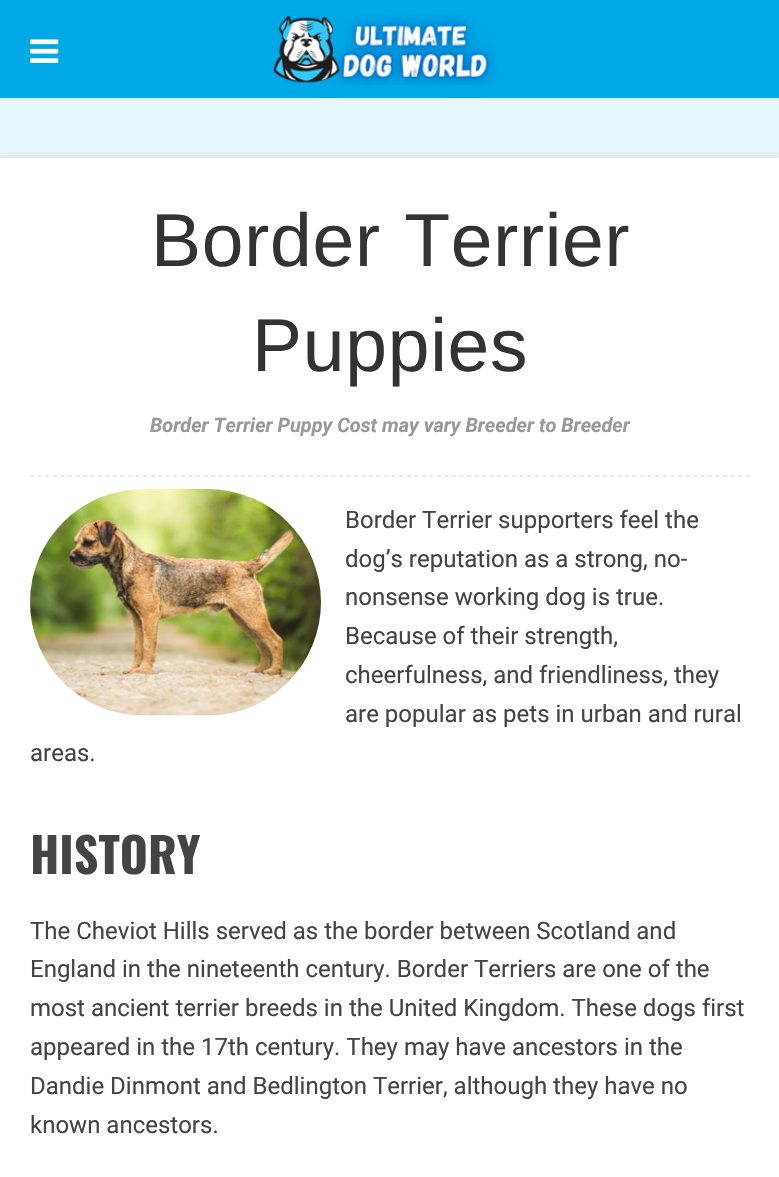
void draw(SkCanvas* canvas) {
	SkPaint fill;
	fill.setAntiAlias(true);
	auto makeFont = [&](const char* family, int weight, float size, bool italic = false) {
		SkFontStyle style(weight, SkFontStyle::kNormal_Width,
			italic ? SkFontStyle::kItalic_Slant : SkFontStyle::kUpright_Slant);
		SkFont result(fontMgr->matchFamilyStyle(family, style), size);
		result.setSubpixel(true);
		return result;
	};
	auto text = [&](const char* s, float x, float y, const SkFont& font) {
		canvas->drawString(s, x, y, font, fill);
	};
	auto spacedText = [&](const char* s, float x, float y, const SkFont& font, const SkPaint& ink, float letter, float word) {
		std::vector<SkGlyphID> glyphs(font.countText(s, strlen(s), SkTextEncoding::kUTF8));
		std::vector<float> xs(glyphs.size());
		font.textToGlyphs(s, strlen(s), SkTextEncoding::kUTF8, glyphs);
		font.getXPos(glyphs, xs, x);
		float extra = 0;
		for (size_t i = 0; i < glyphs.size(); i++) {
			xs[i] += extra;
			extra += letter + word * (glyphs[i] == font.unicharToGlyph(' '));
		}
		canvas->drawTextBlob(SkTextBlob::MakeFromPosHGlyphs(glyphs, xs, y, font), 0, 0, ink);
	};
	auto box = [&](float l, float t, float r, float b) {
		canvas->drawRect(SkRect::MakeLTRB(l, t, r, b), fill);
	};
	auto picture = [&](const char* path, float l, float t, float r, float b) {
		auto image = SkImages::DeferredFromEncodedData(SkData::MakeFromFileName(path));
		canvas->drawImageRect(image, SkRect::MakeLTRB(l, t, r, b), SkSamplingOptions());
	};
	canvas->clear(0xFFE5F6FC);
	fill.setColor(0xFF00A8E6);
	box(0, 0, 779, 98);
	picture("image0.png", 30, 39, 59, 63);
	picture("image1.png", 273, 15, 497, 85);
	fill.setColor(0x1A000000);
	fill.setMaskFilter(SkMaskFilter::MakeBlur(kNormal_SkBlurStyle, 4));
	canvas->drawRect(SkRect::MakeLTRB(0, 158, 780, 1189), fill);
	fill.setMaskFilter(nullptr);
	fill.setColor(0xFFFFFFFF);
	box(0, 158, 779, 1177);
	fill.setStyle(SkPaint::kStroke_Style);
	fill.setStrokeWidth(1.5f);
	fill.setColor(0xFFE2E2E2);
	fill.setPathEffect(SkDashPathEffect::Make({{4.5f, 3.03f}}, 0));
	canvas->drawPath(SkPathBuilder().moveTo(30, 476).lineTo(750, 476).detach(), fill);
	fill.setPathEffect(nullptr);
	picture("image2.png", 30, 489, 321, 716);
	auto font1 = makeFont("Liberation Sans", 400, 75);
	fill.setStyle(SkPaint::kFill_Style);
	fill.setColor(0xFF333333);
	spacedText("Border Terrier", 151, 266, font1, fill, 0.75f, 2);
	spacedText("Puppies", 252, 371, font1, fill, 0.75f, 0);
	auto font2 = makeFont("Roboto", 700, 19.9f, true);
	fill.setColor(0xFF999999);
	text("Border Terrier Puppy Cost may vary Breeder to Breeder", 150, 432, font2);
	auto font3 = makeFont("Roboto", 400, 24);
	fill.setColor(0xFF444444);
	text("Border Terrier supporters feel the", 345, 528, font3);
	text("dog’s reputation as a strong, no-", 345, 567, font3);
	text("nonsense working dog is true.", 345, 605, font3);
	text("Because of their strength,", 345, 644, font3);
	text("cheerfulness, and friendliness, they", 345, 683, font3);
	text("are popular as pets in urban and rural", 345, 722, font3);
	text("areas.", 30, 761, font3);
	auto font4 = makeFont("Oswald", 700, 48);
	text("HISTORY", 30, 874, font4);
	text("The Cheviot Hills served as the border between Scotland and", 30, 939, font3);
	text("England in the nineteenth century. Border Terriers are one of the", 30, 977, font3);
	text("most ancient terrier breeds in the United Kingdom. These dogs first", 30, 1016, font3);
	text("appeared in the 17th century. They may have ancestors in the", 30, 1055, font3);
	text("Dandie Dinmont and Bedlington Terrier, although they have no", 30, 1094, font3);
	text("known ancestors.", 30, 1133, font3);
}
